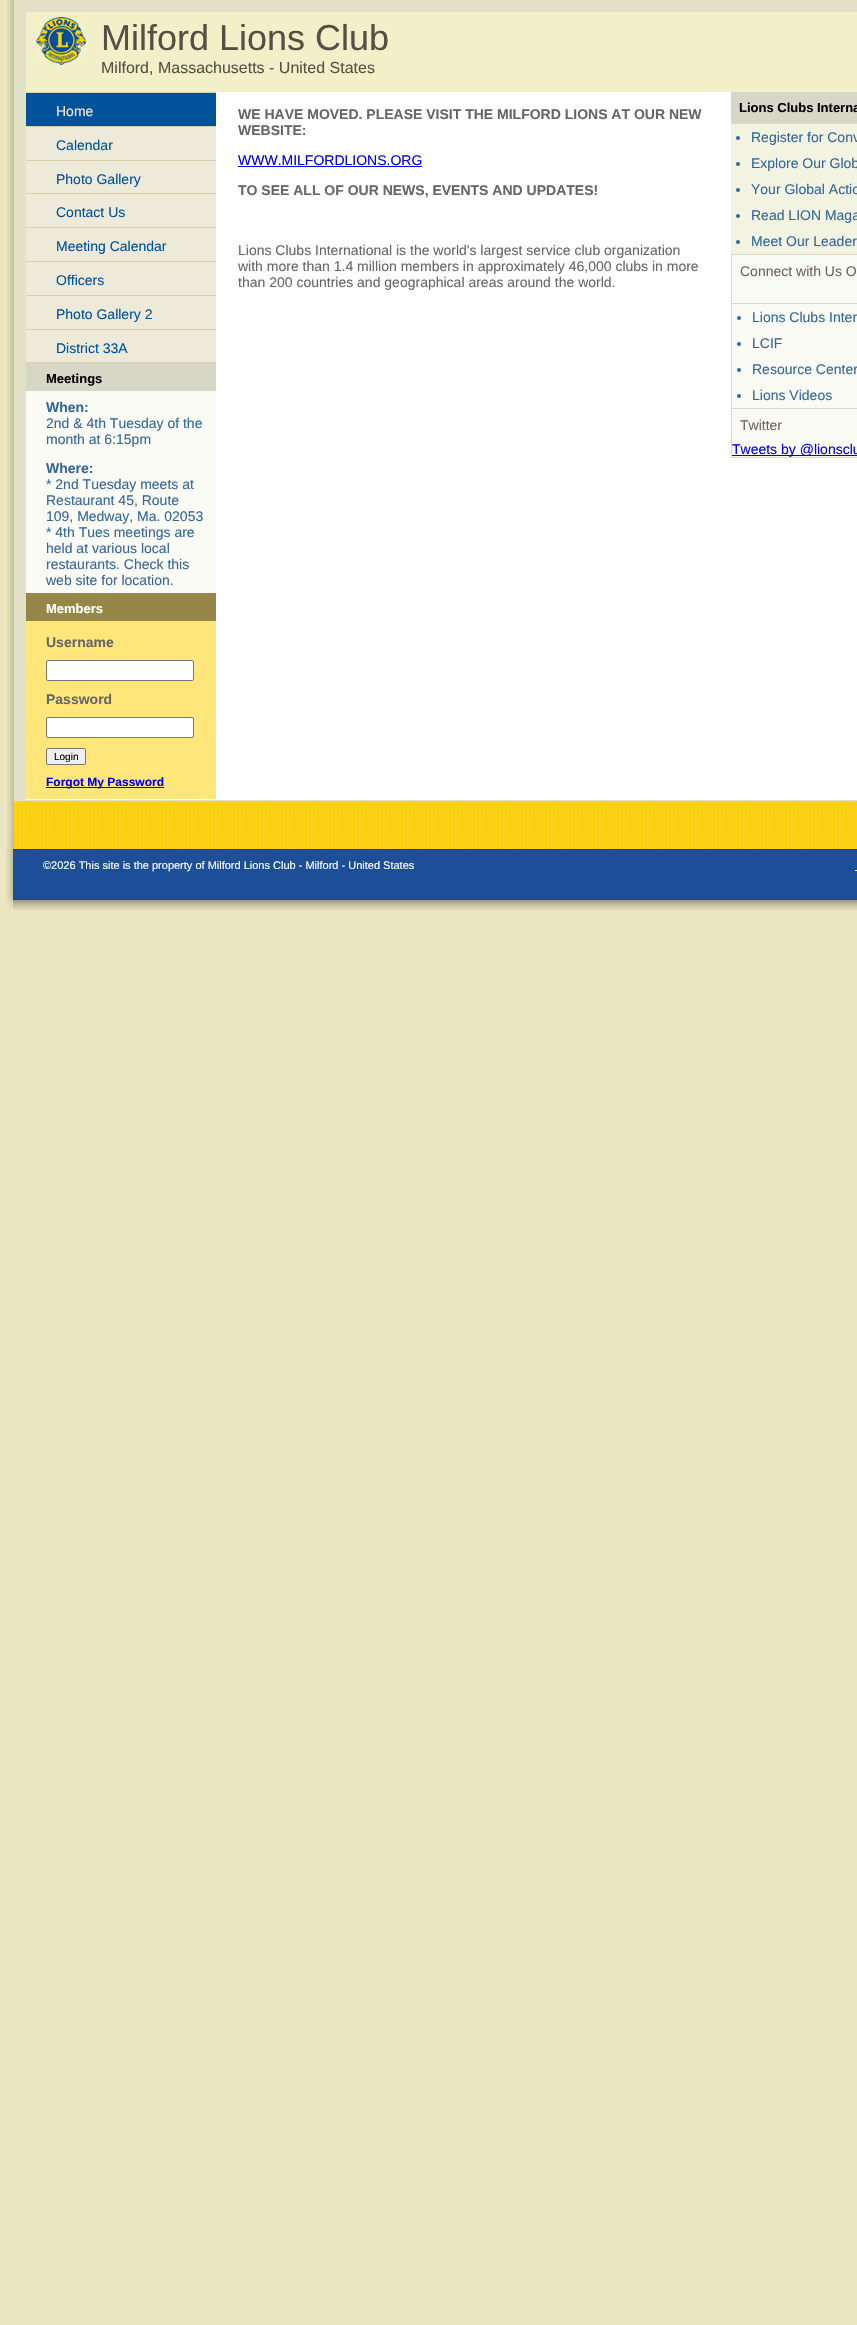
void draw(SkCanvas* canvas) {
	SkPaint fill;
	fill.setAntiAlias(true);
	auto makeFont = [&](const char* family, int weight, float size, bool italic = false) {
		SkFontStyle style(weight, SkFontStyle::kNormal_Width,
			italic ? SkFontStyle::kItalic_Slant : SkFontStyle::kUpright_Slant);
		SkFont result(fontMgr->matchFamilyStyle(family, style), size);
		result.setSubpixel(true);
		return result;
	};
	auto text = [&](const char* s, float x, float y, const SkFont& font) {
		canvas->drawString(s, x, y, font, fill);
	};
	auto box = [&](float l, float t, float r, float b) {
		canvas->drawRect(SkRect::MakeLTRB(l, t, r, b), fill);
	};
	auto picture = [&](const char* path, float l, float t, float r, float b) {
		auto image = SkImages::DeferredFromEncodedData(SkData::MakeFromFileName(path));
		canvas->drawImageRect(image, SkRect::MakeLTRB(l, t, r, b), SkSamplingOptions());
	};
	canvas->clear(0xFFEBE6C0);
	picture("image0.png", 7, 0, 14, 849);
	fill.setColor(0xFFE2E0C6);
	box(14, 0, 857, 801);
	picture("image1.png", 14, 801, 857, 849);
	fill.setColor(0xFFF3F0C9);
	box(26, 12, 857, 92);
	picture("image2.png", 36, 17, 86, 65);
	fill.setColor(0xFFFFFFFF);
	box(26, 92, 857, 800);
	fill.setColor(0xFFD5D0AA);
	box(26, 92, 216, 93);
	box(26, 126, 216, 127);
	fill.setColor(0xFF00529B);
	box(26, 93, 216, 126);
	fill.setColor(0xFFD5D0AA);
	box(26, 160, 216, 161);
	fill.setColor(0xFFEDEADA);
	box(26, 127, 216, 160);
	fill.setColor(0xFFD5D0AA);
	box(26, 193, 216, 194);
	fill.setColor(0xFFEDEADA);
	box(26, 161, 216, 193);
	fill.setColor(0xFFD5D0AA);
	box(26, 227, 216, 228);
	fill.setColor(0xFFEDEADA);
	box(26, 194, 216, 227);
	fill.setColor(0xFFD5D0AA);
	box(26, 261, 216, 262);
	fill.setColor(0xFFEDEADA);
	box(26, 228, 216, 261);
	fill.setColor(0xFFD5D0AA);
	box(26, 295, 216, 296);
	fill.setColor(0xFFEDEADA);
	box(26, 262, 216, 295);
	fill.setColor(0xFFD5D0AA);
	box(26, 329, 216, 330);
	fill.setColor(0xFFEDEADA);
	box(26, 296, 216, 329);
	fill.setColor(0xFFD5D0AA);
	box(26, 362, 216, 363);
	fill.setColor(0xFFEDEADA);
	box(26, 330, 216, 362);
	fill.setColor(0xFFFBFBF6);
	box(26, 391, 216, 593);
	fill.setColor(0xFFD7D7C7);
	box(26, 363, 216, 391);
	fill.setColor(0xFFFEE67A);
	box(26, 621, 216, 799);
	fill.setColor(0xFF968648);
	box(26, 593, 216, 621);
	fill.setColor(0xFFFFFFFF);
	canvas->drawRoundRect(SkRect::MakeLTRB(46.5f, 660.5f, 193.5f, 680.5f), 1.5f, 1.5f, fill);
	fill.setStyle(SkPaint::kStroke_Style);
	fill.setStrokeWidth(1);
	fill.setColor(0xFF767676);
	canvas->drawRoundRect(SkRect::MakeLTRB(46.5f, 660.5f, 193.5f, 680.5f), 1.5f, 1.5f, fill);
	fill.setStyle(SkPaint::kFill_Style);
	fill.setColor(0xFFFFFFFF);
	canvas->drawRoundRect(SkRect::MakeLTRB(46.5f, 717.5f, 193.5f, 737.5f), 1.5f, 1.5f, fill);
	fill.setStyle(SkPaint::kStroke_Style);
	fill.setColor(0xFF767676);
	canvas->drawRoundRect(SkRect::MakeLTRB(46.5f, 717.5f, 193.5f, 737.5f), 1.5f, 1.5f, fill);
	fill.setStyle(SkPaint::kFill_Style);
	fill.setColor(0xFFEFEFEF);
	canvas->drawRoundRect(SkRect::MakeLTRB(46.5f, 748.5f, 85.5f, 764.5f), 1.5f, 1.5f, fill);
	fill.setStyle(SkPaint::kStroke_Style);
	fill.setColor(0xFF767676);
	canvas->drawRoundRect(SkRect::MakeLTRB(46.5f, 748.5f, 85.5f, 764.5f), 1.5f, 1.5f, fill);
	fill.setStyle(SkPaint::kFill_Style);
	fill.setColor(0xFF0000EE);
	box(46, 787, 164, 788);
	box(238, 166, 422, 167);
	fill.setColor(0xFFF3F3E1);
	box(731, 124, 857, 254);
	fill.setColor(0xFFD7D7C7);
	box(731, 92, 857, 123);
	fill.setColor(0xFFDCD8C8);
	box(731, 123, 857, 124);
	fill.setColor(0xFF336699);
	canvas->drawCircle(738, 138, 2, fill);
	canvas->drawCircle(738, 164, 2, fill);
	canvas->drawCircle(738, 190, 2, fill);
	canvas->drawCircle(738, 216, 2, fill);
	canvas->drawCircle(738, 242, 2, fill);
	fill.setColor(0xFFDCD8C8);
	box(731, 254, 857, 255);
	fill.setColor(0xFFFBFBF6);
	box(732, 255, 857, 303);
	fill.setColor(0xFFDCD8C8);
	box(731, 255, 732, 303);
	box(731, 303, 857, 304);
	fill.setColor(0xFFFBFBF6);
	box(732, 304, 857, 408);
	fill.setColor(0xFFDCD8C8);
	box(731, 304, 732, 408);
	fill.setColor(0xFF336699);
	canvas->drawCircle(739, 318, 2, fill);
	canvas->drawCircle(739, 344, 2, fill);
	canvas->drawCircle(739, 370, 2, fill);
	canvas->drawCircle(739, 396, 2, fill);
	fill.setColor(0xFFDCD8C8);
	box(731, 408, 857, 409);
	fill.setColor(0xFFFBFBF6);
	box(732, 409, 857, 457);
	fill.setColor(0xFFDCD8C8);
	box(731, 409, 732, 457);
	fill.setColor(0xFF0000EE);
	box(732, 455, 857, 456);
	fill.setColor(0xFFDCD8C8);
	box(731, 457, 857, 458);
	picture("image3.png", 6, 849, 13, 908);
	picture("image4.png", 13, 849, 855, 911);
	picture("image5.png", 855, 849, 857, 911);
	fill.setColor(0xFFFFFFFF);
	box(855, 870, 857, 871);
	auto font1 = makeFont("Liberation Sans", 400, 36);
	fill.setColor(0xFF584F44);
	text("Milford Lions Club", 101, 50, font1);
	auto font2 = makeFont("Liberation Sans", 400, 16);
	text("Milford, Massachusetts - United States", 101, 73, font2);
	auto font3 = makeFont("Liberation Sans", 400, 14);
	fill.setColor(0xFFEDEADA);
	text("Home", 56, 116, font3);
	fill.setColor(0xFF00529B);
	text("Calendar", 56, 150, font3);
	text("Photo Gallery", 56, 184, font3);
	text("Contact Us", 56, 217, font3);
	text("Meeting Calendar", 56, 251, font3);
	text("Officers", 56, 285, font3);
	text("Photo Gallery 2", 56, 319, font3);
	text("District 33A", 56, 353, font3);
	auto font4 = makeFont("Liberation Sans", 700, 13);
	fill.setColor(0xFF000000);
	text("Meetings", 46, 383, font4);
	auto font5 = makeFont("Liberation Sans", 700, 14);
	fill.setColor(0xFF336699);
	text("When:", 46, 412, font5);
	text("2nd & 4th Tuesday of the", 46, 428, font3);
	text("month at 6:15pm", 46, 444, font3);
	text("Where:", 46, 473, font5);
	text("* 2nd Tuesday meets at", 46, 489, font3);
	text("Restaurant 45, Route", 46, 505, font3);
	text("109, Medway, Ma. 02053", 46, 521, font3);
	text("* 4th Tues meetings are", 46, 537, font3);
	text("held at various local", 46, 553, font3);
	text("restaurants. Check this", 46, 569, font3);
	text("web site for location.", 46, 585, font3);
	fill.setColor(0xFFFFFFFF);
	text("Members", 46, 613, font4);
	fill.setColor(0xFF666666);
	text("Username", 46, 647, font5);
	text("Password", 46, 704, font5);
	auto font6 = makeFont("Liberation Sans", 400, 10);
	fill.setColor(0xFF000000);
	text("Login", 54, 760, font6);
	auto font7 = makeFont("Liberation Sans", 700, 12);
	fill.setColor(0xFF0000EE);
	text("Forgot My Password", 46, 786, font7);
	fill.setColor(0xFF666666);
	text("WE HAVE MOVED. PLEASE VISIT THE MILFORD LIONS AT OUR NEW", 238, 119, font5);
	text("WEBSITE:", 238, 135, font5);
	fill.setColor(0xFF0000EE);
	text("WWW.MILFORDLIONS.ORG", 238, 165, font3);
	fill.setColor(0xFF666666);
	text("TO SEE ALL OF OUR NEWS, EVENTS AND UPDATES!", 238, 195, font5);
	text("Lions Clubs International is the world's largest service club organization", 238, 255, font3);
	text("with more than 1.4 million members in approximately 46,000 clubs in more", 238, 271, font3);
	text("than 200 countries and geographical areas around the world.", 238, 287, font3);
	fill.setColor(0xFF000000);
	text("Lions Clubs Interna", 739, 112, font4);
	fill.setColor(0xFF336699);
	text("Register for Conv", 751, 142, font3);
	text("Explore Our Glob", 751, 168, font3);
	text("Your Global Actio", 751, 194, font3);
	text("Read LION Maga", 751, 220, font3);
	text("Meet Our Leader", 751, 246, font3);
	fill.setColor(0xFF706356);
	text("Connect with Us O", 740, 276, font3);
	fill.setColor(0xFF336699);
	text("Lions Clubs Inter", 752, 322, font3);
	text("LCIF", 752, 348, font3);
	text("Resource Center", 752, 374, font3);
	text("Lions Videos", 752, 400, font3);
	fill.setColor(0xFF706356);
	text("Twitter", 740, 430, font3);
	fill.setColor(0xFF0000EE);
	text("Tweets by @lionsclu", 732, 454, font3);
	auto font8 = makeFont("Liberation Sans", 400, 11);
	fill.setColor(0xFFFFFFFF);
	text("©2026 This site is the property of Milford Lions Club - Milford - United States", 43, 869, font8);
}
